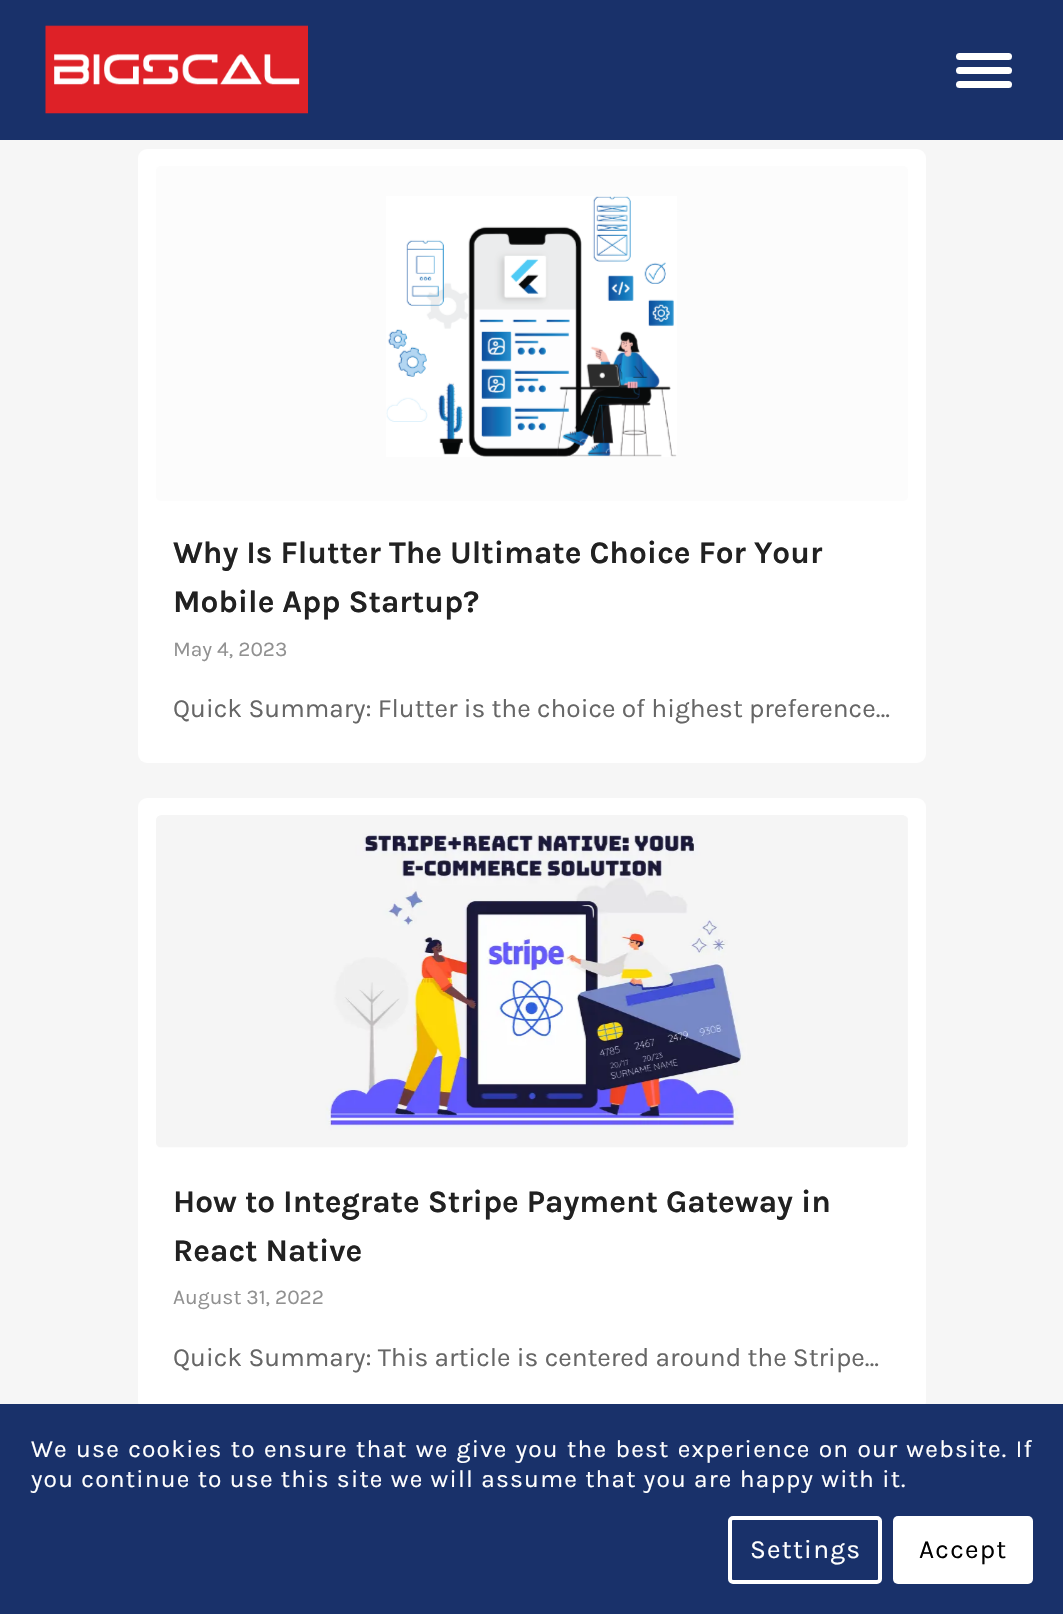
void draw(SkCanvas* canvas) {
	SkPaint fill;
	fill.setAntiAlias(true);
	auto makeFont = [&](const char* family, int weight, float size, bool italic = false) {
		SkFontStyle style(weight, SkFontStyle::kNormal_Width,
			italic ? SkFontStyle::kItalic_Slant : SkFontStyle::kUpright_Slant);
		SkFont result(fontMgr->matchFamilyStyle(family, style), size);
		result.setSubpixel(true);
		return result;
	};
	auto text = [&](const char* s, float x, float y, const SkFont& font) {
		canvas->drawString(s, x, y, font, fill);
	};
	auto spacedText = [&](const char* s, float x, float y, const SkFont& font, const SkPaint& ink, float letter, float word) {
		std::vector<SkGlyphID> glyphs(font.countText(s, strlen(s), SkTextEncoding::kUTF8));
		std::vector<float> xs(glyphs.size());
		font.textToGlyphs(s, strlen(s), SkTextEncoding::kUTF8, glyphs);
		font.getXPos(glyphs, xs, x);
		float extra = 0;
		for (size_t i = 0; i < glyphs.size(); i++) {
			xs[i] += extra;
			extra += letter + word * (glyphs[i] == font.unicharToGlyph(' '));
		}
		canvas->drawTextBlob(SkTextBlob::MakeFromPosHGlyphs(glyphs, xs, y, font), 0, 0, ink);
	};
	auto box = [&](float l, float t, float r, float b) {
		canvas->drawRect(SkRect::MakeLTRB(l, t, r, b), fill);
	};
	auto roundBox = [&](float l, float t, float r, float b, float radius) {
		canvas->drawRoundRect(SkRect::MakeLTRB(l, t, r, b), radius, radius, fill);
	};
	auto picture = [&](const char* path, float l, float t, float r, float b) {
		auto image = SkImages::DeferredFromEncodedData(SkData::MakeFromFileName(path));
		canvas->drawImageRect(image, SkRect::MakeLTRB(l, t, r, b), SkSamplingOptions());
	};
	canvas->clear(0xFFF6F6F6);
	fill.setColor(0xFF19316A);
	box(0, 0, 1063, 140);
	picture("image0.png", 45, 25, 308, 114);
	fill.setColor(0xFFFFFFFF);
	roundBox(956, 53, 1012, 60, 3.5f);
	roundBox(956, 67, 1012, 74, 3.5f);
	roundBox(956, 81, 1012, 88, 3.5f);
	roundBox(138, 149, 926, 763, 9);
	fill.setColor(0xFFFCFCFC);
	roundBox(156, 166, 908, 501, 5);
	picture("image1.png", 386, 196, 677, 457);
	fill.setColor(0xFFFFFFFF);
	roundBox(138, 798, 926, 1411, 9);
	fill.setColor(0xFFFCFCFC);
	roundBox(156, 816, 908, 1148, 5);
	picture("image2.png", 156, 815, 908, 1147);
	fill.setColor(0xFF19316A);
	box(0, 1404, 1063, 1614);
	fill.setStyle(SkPaint::kStroke_Style);
	fill.setStrokeWidth(4);
	fill.setColor(0xFFFFFFFF);
	canvas->drawRoundRect(SkRect::MakeLTRB(730, 1518, 880, 1582), 3, 3, fill);
	fill.setStyle(SkPaint::kFill_Style);
	roundBox(893, 1516, 1033, 1584, 5);
	auto font1 = makeFont("Karla", 700, 31.5f);
	fill.setColor(0xFF212121);
	text("Why Is Flutter The Ultimate Choice For Your", 173, 563, font1);
	text("Mobile App Startup?", 173, 612, font1);
	auto font2 = makeFont("Karla", 400, 21);
	fill.setColor(0xFF919191);
	text("May 4, 2023", 173, 656, font2);
	auto font3 = makeFont("Karla", 400, 26.25f);
	fill.setColor(0xFF666666);
	text("Quick Summary: Flutter is the choice of highest preference…", 173, 717, font3);
	fill.setColor(0xFF212121);
	text("How to Integrate Stripe Payment Gateway in", 173, 1212, font1);
	text("React Native", 173, 1261, font1);
	fill.setColor(0xFF919191);
	text("August 31, 2022", 173, 1304, font2);
	fill.setColor(0xFF666666);
	text("Quick Summary: This article is centered around the Stripe…", 173, 1366, font3);
	auto font4 = makeFont("Karla", 400, 24.5f);
	fill.setColor(0xFFFFFFFF);
	spacedText("We use cookies to ensure that we give you the best experience on our website. If", 31, 1457, font4, fill, 1.22f, 1.1f);
	spacedText("you continue to use this site we will assume that you are happy with it.", 31, 1487, font4, fill, 1.22f, 0);
	spacedText("Settings", 750, 1558, font3, fill, 1.25f, 0);
	fill.setColor(0xFF000000);
	spacedText("Accept", 919, 1558, font3, fill, 1.25f, 0);
}
